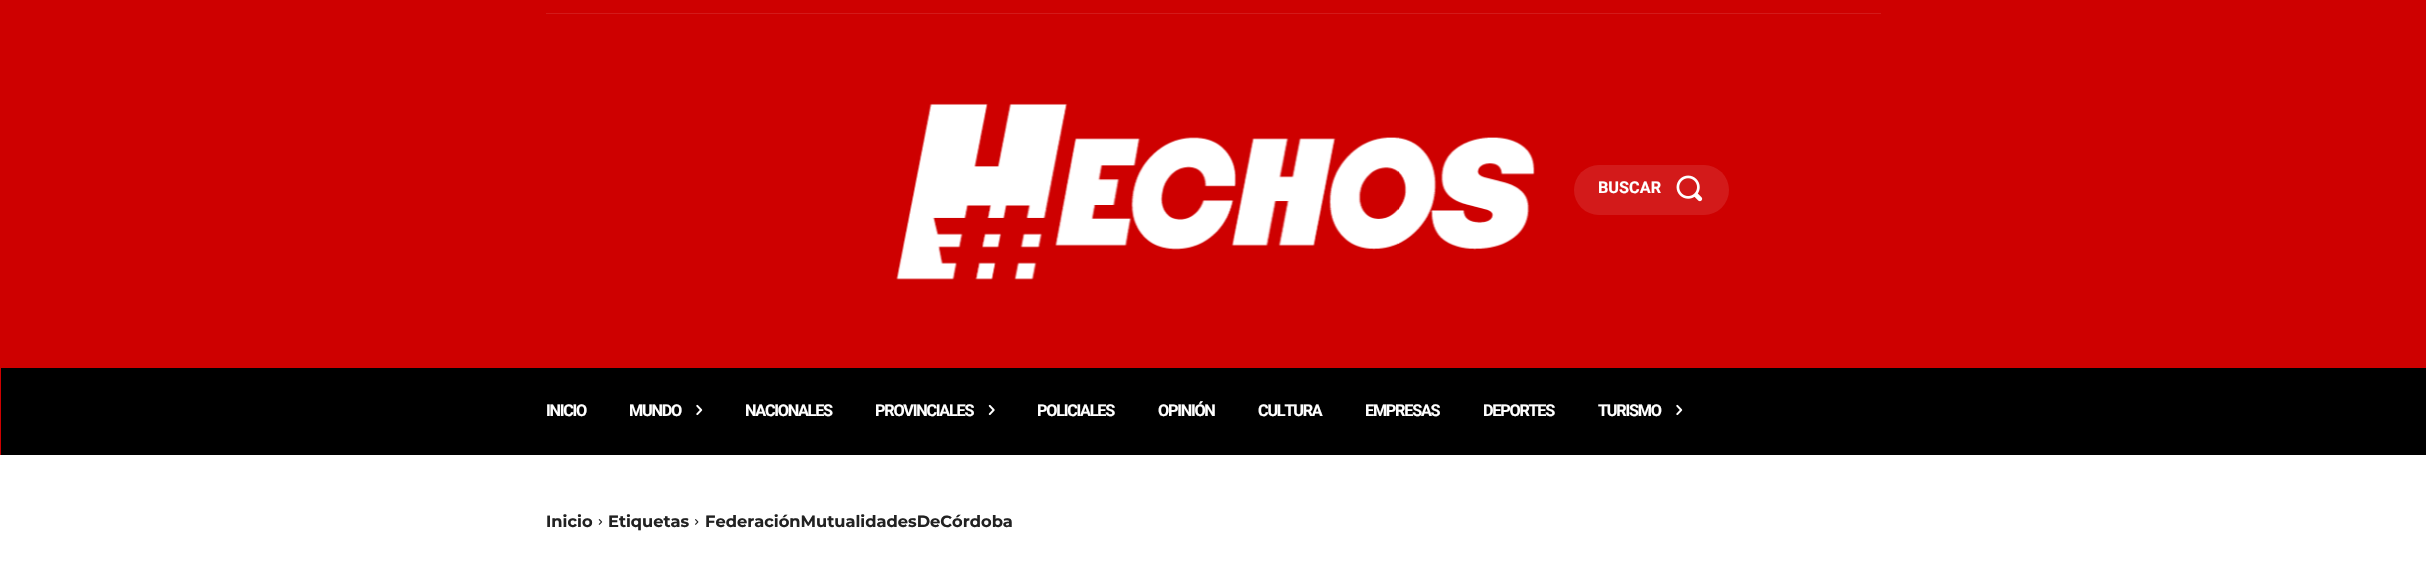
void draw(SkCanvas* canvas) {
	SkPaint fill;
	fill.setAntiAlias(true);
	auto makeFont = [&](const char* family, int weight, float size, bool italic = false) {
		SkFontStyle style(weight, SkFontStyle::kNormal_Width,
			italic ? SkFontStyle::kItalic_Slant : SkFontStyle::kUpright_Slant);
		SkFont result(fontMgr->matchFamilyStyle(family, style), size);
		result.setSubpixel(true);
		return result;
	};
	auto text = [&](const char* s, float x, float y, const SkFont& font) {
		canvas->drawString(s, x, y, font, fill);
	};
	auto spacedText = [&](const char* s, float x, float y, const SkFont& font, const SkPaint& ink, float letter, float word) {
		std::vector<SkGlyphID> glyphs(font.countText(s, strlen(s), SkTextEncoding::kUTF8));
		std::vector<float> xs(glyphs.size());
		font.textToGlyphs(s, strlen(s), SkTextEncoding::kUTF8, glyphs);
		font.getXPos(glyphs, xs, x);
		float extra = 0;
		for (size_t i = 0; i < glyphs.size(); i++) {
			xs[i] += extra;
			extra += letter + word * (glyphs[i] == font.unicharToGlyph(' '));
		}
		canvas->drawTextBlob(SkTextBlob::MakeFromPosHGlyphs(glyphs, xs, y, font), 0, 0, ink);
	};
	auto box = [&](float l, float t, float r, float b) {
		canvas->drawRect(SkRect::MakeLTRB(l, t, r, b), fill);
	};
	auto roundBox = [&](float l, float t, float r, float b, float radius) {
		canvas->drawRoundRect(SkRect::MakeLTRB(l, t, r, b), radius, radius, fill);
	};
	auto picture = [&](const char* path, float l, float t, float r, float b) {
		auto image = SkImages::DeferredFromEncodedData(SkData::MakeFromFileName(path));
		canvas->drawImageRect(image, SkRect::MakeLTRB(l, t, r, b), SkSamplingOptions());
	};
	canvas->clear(0xFFFFFFFF);
	fill.setColor(0xFFCE0000);
	box(0, 0, 2426, 455);
	fill.setColor(0xFFD31A1A);
	box(546, 13, 1881, 14);
	picture("image0.png", 896, 103, 1535, 280);
	roundBox(1574, 165, 1729, 215, 25);
	picture("image1.png", 1676, 175, 1703, 202);
	fill.setColor(0xFF000000);
	box(1, 368, 2426, 455);
	picture("image2.png", 696, 404, 703, 416);
	picture("image3.png", 988, 404, 995, 416);
	picture("image2.png", 1676, 404, 1683, 416);
	picture("image4.png", 598, 519, 603, 525);
	picture("image5.png", 695, 519, 699, 525);
	auto font1 = makeFont("Roboto", 700, 16.25f);
	fill.setColor(0xFFFFFFFF);
	text("BUSCAR", 1598, 193, font1);
	spacedText("INICIO", 546, 416, font1, fill, -1.25f, 0);
	spacedText("MUNDO", 629, 416, font1, fill, -1.25f, 0);
	spacedText("NACIONALES", 745, 416, font1, fill, -1.25f, 0);
	spacedText("PROVINCIALES", 875, 416, font1, fill, -1.25f, 0);
	spacedText("POLICIALES", 1037, 416, font1, fill, -1.25f, 0);
	spacedText("OPINIÓN", 1158, 416, font1, fill, -1.25f, 0);
	spacedText("CULTURA", 1258, 416, font1, fill, -1.25f, 0);
	spacedText("EMPRESAS", 1365, 416, font1, fill, -1.25f, 0);
	spacedText("DEPORTES", 1483, 416, font1, fill, -1.25f, 0);
	spacedText("TURISMO", 1598, 416, font1, fill, -1.25f, 0);
	auto font2 = makeFont("Montserrat", 700, 16.25f);
	fill.setColor(0xFF222222);
	text("Inicio", 546, 527, font2);
	text("Etiquetas", 608, 527, font2);
	text("FederaciónMutualidadesDeCórdoba", 705, 527, font2);
}
